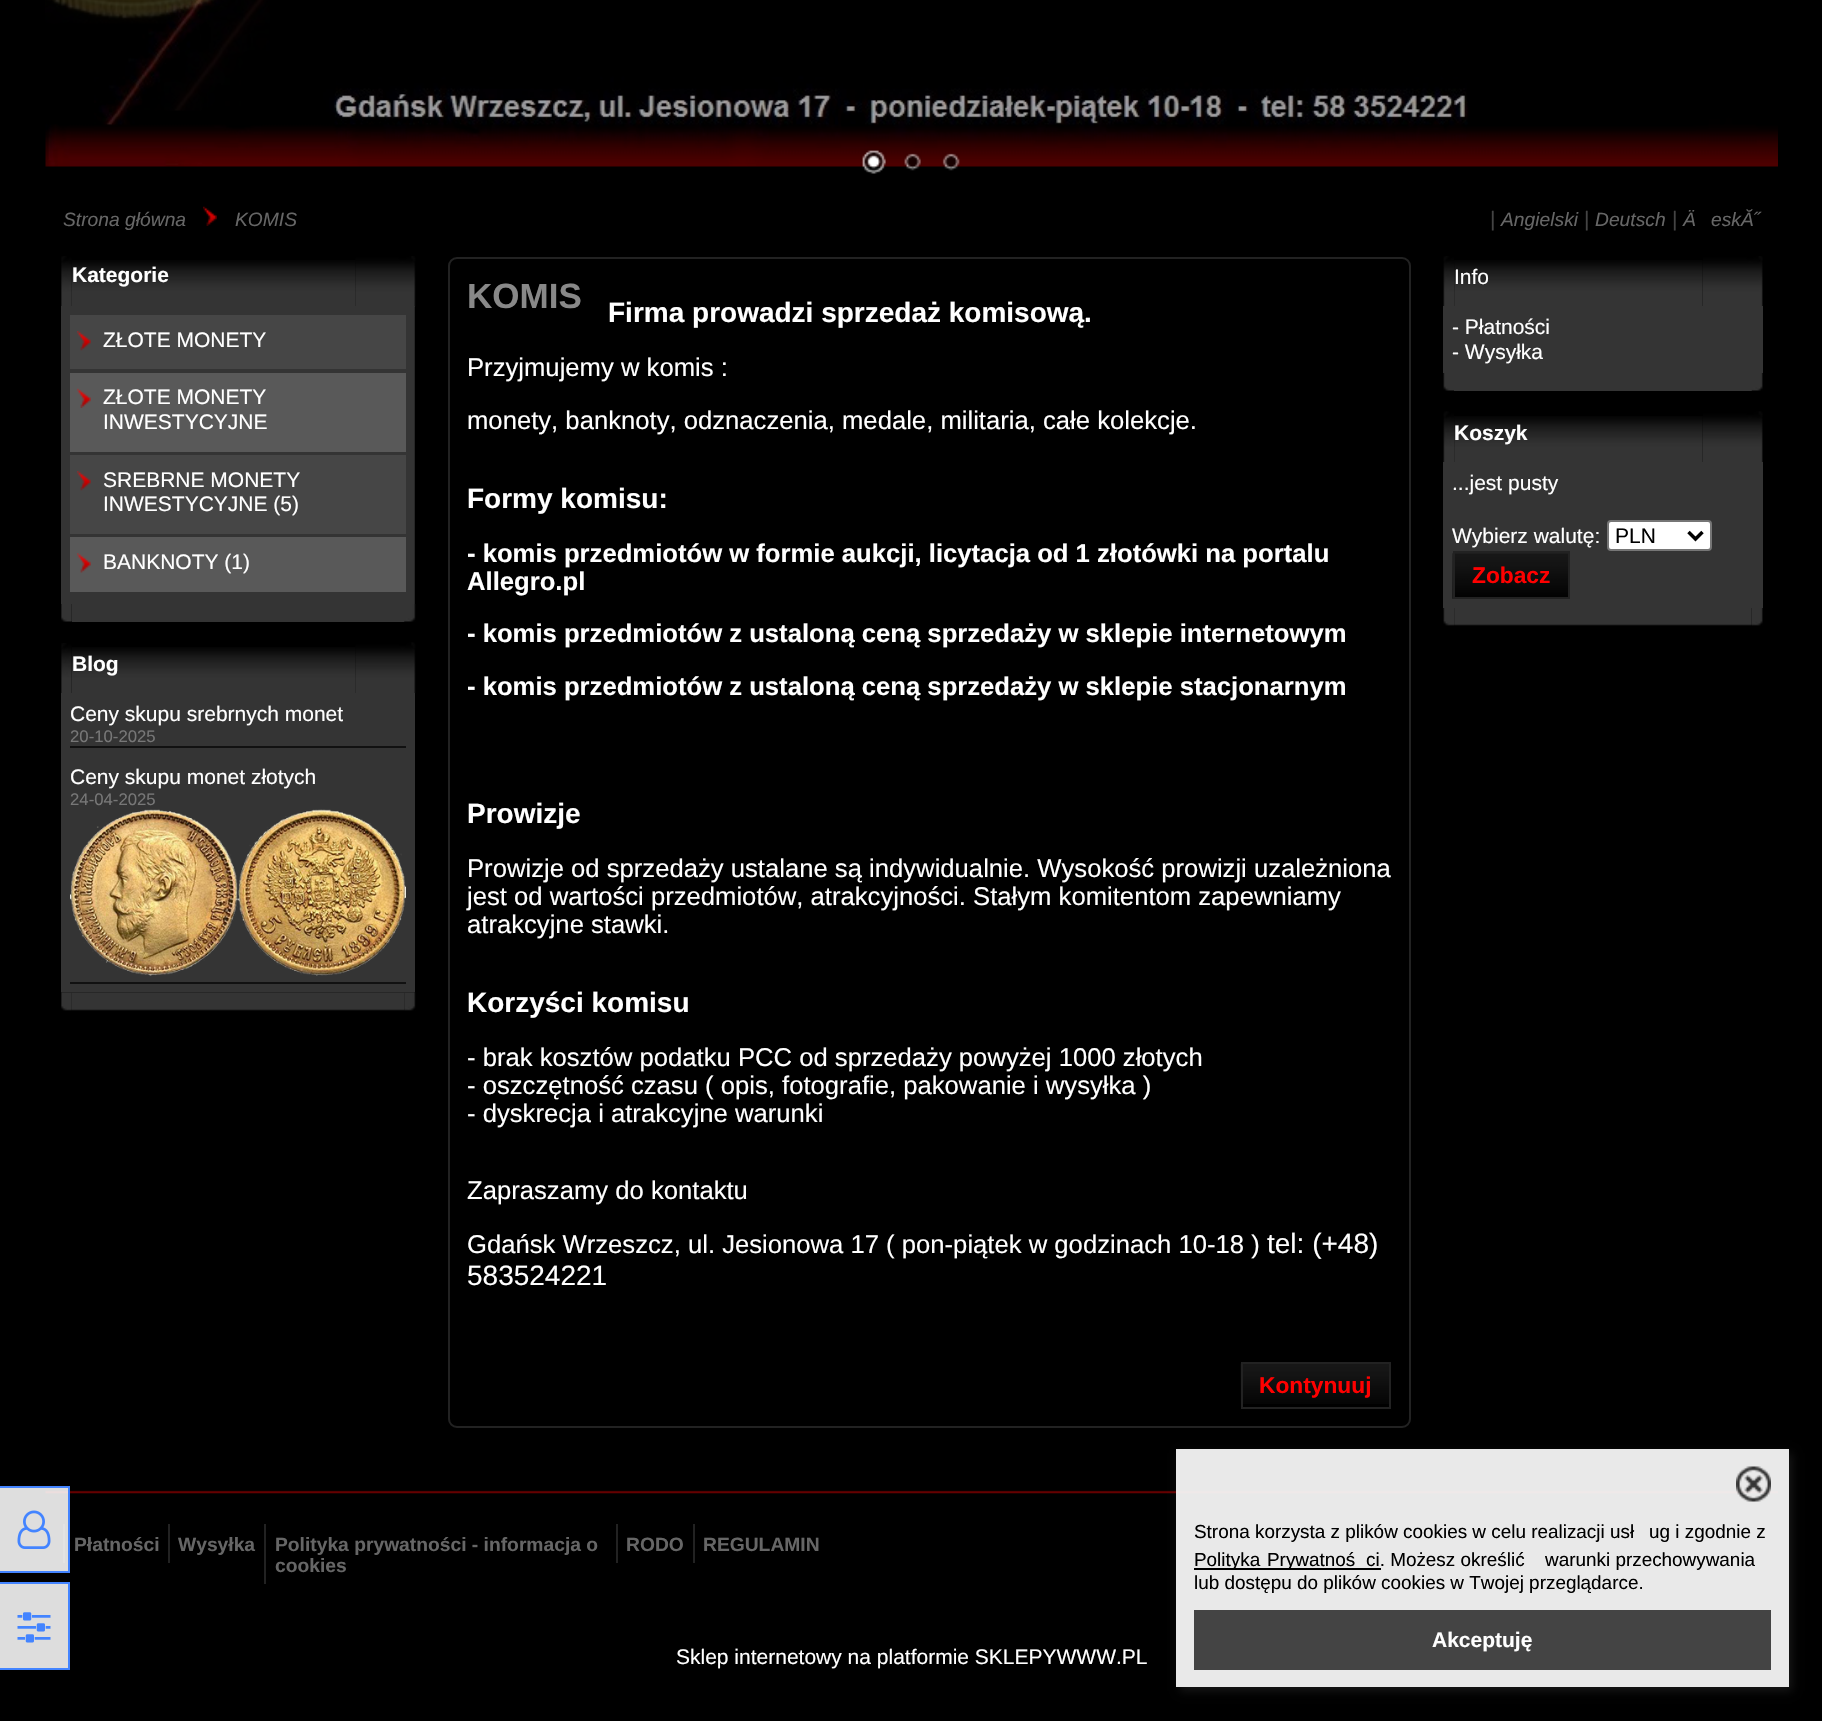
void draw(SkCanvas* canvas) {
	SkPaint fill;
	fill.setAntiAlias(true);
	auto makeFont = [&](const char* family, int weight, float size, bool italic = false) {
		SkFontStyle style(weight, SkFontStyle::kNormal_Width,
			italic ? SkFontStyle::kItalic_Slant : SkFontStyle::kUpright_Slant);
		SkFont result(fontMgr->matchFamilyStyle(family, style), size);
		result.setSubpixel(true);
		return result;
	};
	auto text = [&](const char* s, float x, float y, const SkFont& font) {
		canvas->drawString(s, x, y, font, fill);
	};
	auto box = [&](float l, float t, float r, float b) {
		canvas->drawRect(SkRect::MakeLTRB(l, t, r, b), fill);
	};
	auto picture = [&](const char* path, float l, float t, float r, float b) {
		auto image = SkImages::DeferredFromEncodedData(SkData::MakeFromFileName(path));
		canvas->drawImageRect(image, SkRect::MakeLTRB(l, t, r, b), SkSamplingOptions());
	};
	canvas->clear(0xFF000000);
	picture("image38.png", 45, 1490, 1778, 1494);
	fill.setColor(0xFF222222);
	box(63, 1524, 65, 1563);
	fill.setColor(0xDEFFFFFF);
	canvas->drawRect(SkRect::MakeLTRB(-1, 1487, 69, 1572), fill);
	fill.setStyle(SkPaint::kStroke_Style);
	fill.setStrokeWidth(2);
	fill.setColor(0xFF4384FF);
	canvas->drawRect(SkRect::MakeLTRB(-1, 1487, 69, 1572), fill);
	picture("image0.png", 17, 1510, 51, 1549);
	fill.setStyle(SkPaint::kFill_Style);
	fill.setColor(0xFFDDDDDD);
	canvas->drawRect(SkRect::MakeLTRB(-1, 1583, 69, 1669), fill);
	fill.setStyle(SkPaint::kStroke_Style);
	fill.setColor(0xFF4384FF);
	canvas->drawRect(SkRect::MakeLTRB(-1, 1583, 69, 1669), fill);
	picture("image1.png", 17, 1612, 51, 1643);
	picture("image2.png", 45, 0, 270, 111);
	picture("image6.png", 45, 0, 1778, 167);
	picture("image3.png", 860, 149, 887, 174);
	picture("image4.png", 903, 153, 922, 171);
	picture("image5.png", 942, 153, 960, 171);
	picture("image7.png", 203, 206, 217, 226);
	picture("image8.png", 61, 256, 72, 306);
	picture("image9.png", 71, 260, 356, 306);
	picture("image10.png", 355, 256, 416, 307);
	fill.setStyle(SkPaint::kFill_Style);
	fill.setColor(0xFF343434);
	box(61, 306, 415, 604);
	fill.setColor(0xFF464646);
	box(70, 315, 406, 369);
	picture("image11.png", 77, 331, 91, 351);
	fill.setColor(0xFF595959);
	box(70, 373, 406, 452);
	picture("image12.png", 77, 388, 91, 408);
	fill.setColor(0xFF464646);
	box(70, 455, 406, 534);
	picture("image11.png", 77, 471, 91, 491);
	fill.setColor(0xFF595959);
	box(70, 537, 406, 592);
	picture("image13.png", 77, 553, 91, 573);
	picture("image14.png", 414, 306, 415, 604);
	picture("image15.png", 61, 604, 72, 622);
	fill.setColor(0xFF343434);
	box(72, 604, 405, 622);
	picture("image16.png", 404, 604, 416, 622);
	picture("image17.png", 61, 643, 72, 693);
	picture("image18.png", 72, 647, 356, 693);
	picture("image19.png", 355, 642, 416, 694);
	box(61, 693, 415, 992);
	picture("image22.png", 61, 992, 72, 1011);
	picture("image23.png", 71, 992, 405, 1011);
	picture("image24.png", 404, 992, 416, 1011);
	picture("image20.png", 61, 992, 415, 993);
	fill.setColor(0xFF111111);
	box(70, 746, 406, 748);
	box(70, 982, 406, 984);
	picture("image21.png", 70, 809, 406, 976);
	fill.setStyle(SkPaint::kStroke_Style);
	fill.setColor(0xFF222222);
	canvas->drawRoundRect(SkRect::MakeLTRB(449, 258, 1410, 1427), 8, 8, fill);
	picture("image25.png", 1240, 1363, 1389, 1404);
	canvas->drawRect(SkRect::MakeLTRB(1242, 1363, 1390, 1408), fill);
	picture("image26.png", 1443, 256, 1455, 306);
	picture("image27.png", 1454, 260, 1703, 306);
	picture("image28.png", 1703, 256, 1763, 306);
	fill.setStyle(SkPaint::kFill_Style);
	fill.setColor(0xFF343434);
	box(1443, 306, 1763, 373);
	picture("image29.png", 1443, 373, 1454, 391);
	box(1454, 373, 1752, 391);
	picture("image30.png", 1751, 373, 1763, 391);
	picture("image31.png", 1443, 411, 1455, 462);
	picture("image32.png", 1454, 416, 1703, 462);
	picture("image33.png", 1703, 411, 1763, 462);
	box(1443, 462, 1763, 608);
	fill.setColor(0xFFFFFFFF);
	canvas->drawRoundRect(SkRect::MakeLTRB(1608, 521, 1711, 550), 3, 3, fill);
	fill.setStyle(SkPaint::kStroke_Style);
	fill.setColor(0xFF767676);
	canvas->drawRoundRect(SkRect::MakeLTRB(1608, 521, 1711, 550), 3, 3, fill);
	fill.setStrokeWidth(3.5f);
	fill.setColor(0xFF000000);
	canvas->drawPath(SkPathBuilder().moveTo(1688.5f, 532).lineTo(1695.5f, 539).lineTo(1702.5f, 532).detach(), fill);
	picture("image34.png", 1452, 553, 1568, 599);
	fill.setStrokeWidth(2);
	fill.setColor(0xFF222222);
	canvas->drawRect(SkRect::MakeLTRB(1454, 552, 1569, 598), fill);
	picture("image35.png", 1443, 608, 1455, 626);
	picture("image36.png", 1454, 608, 1752, 626);
	picture("image37.png", 1752, 608, 1763, 626);
	fill.setStyle(SkPaint::kFill_Style);
	box(168, 1524, 170, 1563);
	box(264, 1524, 266, 1584);
	box(616, 1524, 618, 1563);
	box(693, 1524, 695, 1563);
	canvas->save();
	canvas->clipPath(SkPathBuilder(SkPathFillType::kEvenOdd).moveTo(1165, 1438).lineTo(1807, 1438).lineTo(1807, 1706).lineTo(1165, 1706).close().moveTo(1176, 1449).lineTo(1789, 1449).lineTo(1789, 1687).lineTo(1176, 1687).close().detach(), true);
	fill.setColor(0x45555555);
	fill.setMaskFilter(SkMaskFilter::MakeBlur(kNormal_SkBlurStyle, 4.5f));
	canvas->drawRect(SkRect::MakeLTRB(1180, 1453, 1792, 1691), fill);
	fill.setMaskFilter(nullptr);
	canvas->restore();
	fill.setColor(0xF2F5F5F5);
	box(1176, 1449, 1789, 1687);
	picture("image39.png", 1736, 1466, 1771, 1502);
	fill.setColor(0xFF000000);
	box(1194, 1568, 1381, 1570);
	fill.setColor(0xFF444444);
	box(1194, 1610, 1771, 1670);
	auto font1 = makeFont("Liberation Sans", 400, 19.25f, true);
	fill.setColor(0xFF666666);
	text("Strona główna", 63, 226, font1);
	text("KOMIS", 235, 226, font1);
	auto font2 = makeFont("Liberation Sans", 400, 21);
	fill.setColor(0xFF444444);
	text("|", 1490, 226, font2);
	fill.setColor(0xFF666666);
	text("Angielski", 1501, 226, font1);
	fill.setColor(0xFF444444);
	text("|", 1584, 226, font2);
	fill.setColor(0xFF666666);
	text("Deutsch", 1595, 226, font1);
	fill.setColor(0xFF444444);
	text("|", 1672, 226, font2);
	fill.setColor(0xFF666666);
	text("Ä", 1683, 226, font1);
	text("eskĂ˝", 1711, 226, font1);
	auto font3 = makeFont("Liberation Sans", 700, 21);
	fill.setColor(0xFFFFFFFF);
	text("Kategorie", 72, 282, font3);
	text("ZŁOTE MONETY", 103, 347, font2);
	text("ZŁOTE MONETY", 103, 404, font2);
	text("INWESTYCYJNE", 103, 429, font2);
	text("SREBRNE MONETY", 103, 487, font2);
	text("INWESTYCYJNE (5)", 103, 511, font2);
	text("BANKNOTY (1)", 103, 569, font2);
	text("Blog", 72, 671, font3);
	text("Ceny skupu srebrnych monet", 70, 721, font2);
	auto font4 = makeFont("Liberation Sans", 400, 16.75f);
	fill.setColor(0xFF777777);
	text("20-10-2025", 70, 742, font4);
	fill.setColor(0xFFFFFFFF);
	text("Ceny skupu monet złotych", 70, 784, font2);
	fill.setColor(0xFF777777);
	text("24-04-2025", 70, 805, font4);
	auto font5 = makeFont("Liberation Sans", 700, 35);
	fill.setColor(0xFF888888);
	text("KOMIS", 467, 308, font5);
	auto font6 = makeFont("Liberation Sans", 700, 28);
	fill.setColor(0xFFFFFFFF);
	text("Firma prowadzi sprzedaż komisową.", 608, 322, font6);
	auto font7 = makeFont("Liberation Sans", 400, 25.65f);
	text("Przyjmujemy w komis :", 467, 376, font7);
	text("monety, banknoty, odznaczenia, medale, militaria, całe kolekcje.", 467, 429, font7);
	text("Formy komisu:", 467, 508, font6);
	auto font8 = makeFont("Liberation Sans", 700, 25.65f);
	text("- komis przedmiotów w formie aukcji, licytacja od 1 złotówki na portalu", 467, 562, font8);
	text("Allegro.pl", 467, 590, font8);
	text("- komis przedmiotów z ustaloną ceną sprzedaży w sklepie internetowym", 467, 642, font8);
	text("- komis przedmiotów z ustaloną ceną sprzedaży w sklepie stacjonarnym", 467, 695, font8);
	text("Prowizje", 467, 823, font6);
	text("Prowizje od sprzedaży ustalane są indywidualnie. Wysokość prowizji uzależniona", 467, 877, font7);
	text("jest od wartości przedmiotów, atrakcyjności. Stałym komitentom zapewniamy", 467, 905, font7);
	text("atrakcyjne stawki.", 467, 933, font7);
	text("Korzyści komisu", 467, 1012, font6);
	text("- brak kosztów podatku PCC od sprzedaży powyżej 1000 złotych", 467, 1066, font7);
	text("- oszczętność czasu ( opis, fotografie, pakowanie i wysyłka )", 467, 1094, font7);
	text("- dyskrecja i atrakcyjne warunki", 467, 1122, font7);
	text("Zapraszamy do kontaktu", 467, 1199, font7);
	text("Gdańsk Wrzeszcz, ul. Jesionowa 17 ( pon-piątek w godzinach 10-18 )", 467, 1253, font7);
	auto font9 = makeFont("Liberation Sans", 400, 28);
	text("tel: (+48)", 1267, 1253, font9);
	text("583524221", 467, 1285, font9);
	auto font10 = makeFont("Liberation Sans", 700, 22.75f);
	fill.setColor(0xFFFF0000);
	text("Kontynuuj", 1259, 1393, font10);
	fill.setColor(0xFFFFFFFF);
	text("Info", 1454, 284, font2);
	text("- Płatności", 1452, 334, font2);
	text("- Wysyłka", 1452, 359, font2);
	text("Koszyk", 1454, 440, font3);
	text("...jest pusty", 1452, 490, font2);
	text("Wybierz walutę:", 1452, 543, font2);
	fill.setColor(0xFF000000);
	text("PLN", 1615, 543, font2);
	fill.setColor(0xFFFF0000);
	text("Zobacz", 1472, 583, font10);
	auto font11 = makeFont("Liberation Sans", 700, 19.25f);
	fill.setColor(0xFF666666);
	text("Płatności", 74, 1551, font11);
	text("Wysyłka", 178, 1551, font11);
	text("Polityka prywatności - informacja o", 275, 1551, font11);
	text("cookies", 275, 1572, font11);
	text("RODO", 626, 1551, font11);
	text("REGULAMIN", 703, 1551, font11);
	fill.setColor(0xFFFFFFFF);
	text("Sklep internetowy na platformie SKLEPYWWW.PL", 676, 1664, font2);
	auto font12 = makeFont("Liberation Sans", 400, 18.9f);
	fill.setColor(0xFF000000);
	text("Strona korzysta z plików cookies w celu realizacji usł", 1194, 1538, font12);
	text("ug i zgodnie z", 1649, 1538, font12);
	text("Polityka", 1194, 1566, font12);
	text("Prywatnoś", 1267, 1566, font12);
	text("ci. Możesz określić", 1366, 1566, font12);
	text("warunki przechowywania", 1545, 1566, font12);
	text("lub dostępu do plików cookies w Twojej przeglądarce.", 1194, 1589, font12);
	fill.setColor(0xFFFFFFFF);
	text("Akceptuję", 1432, 1647, font3);
}
